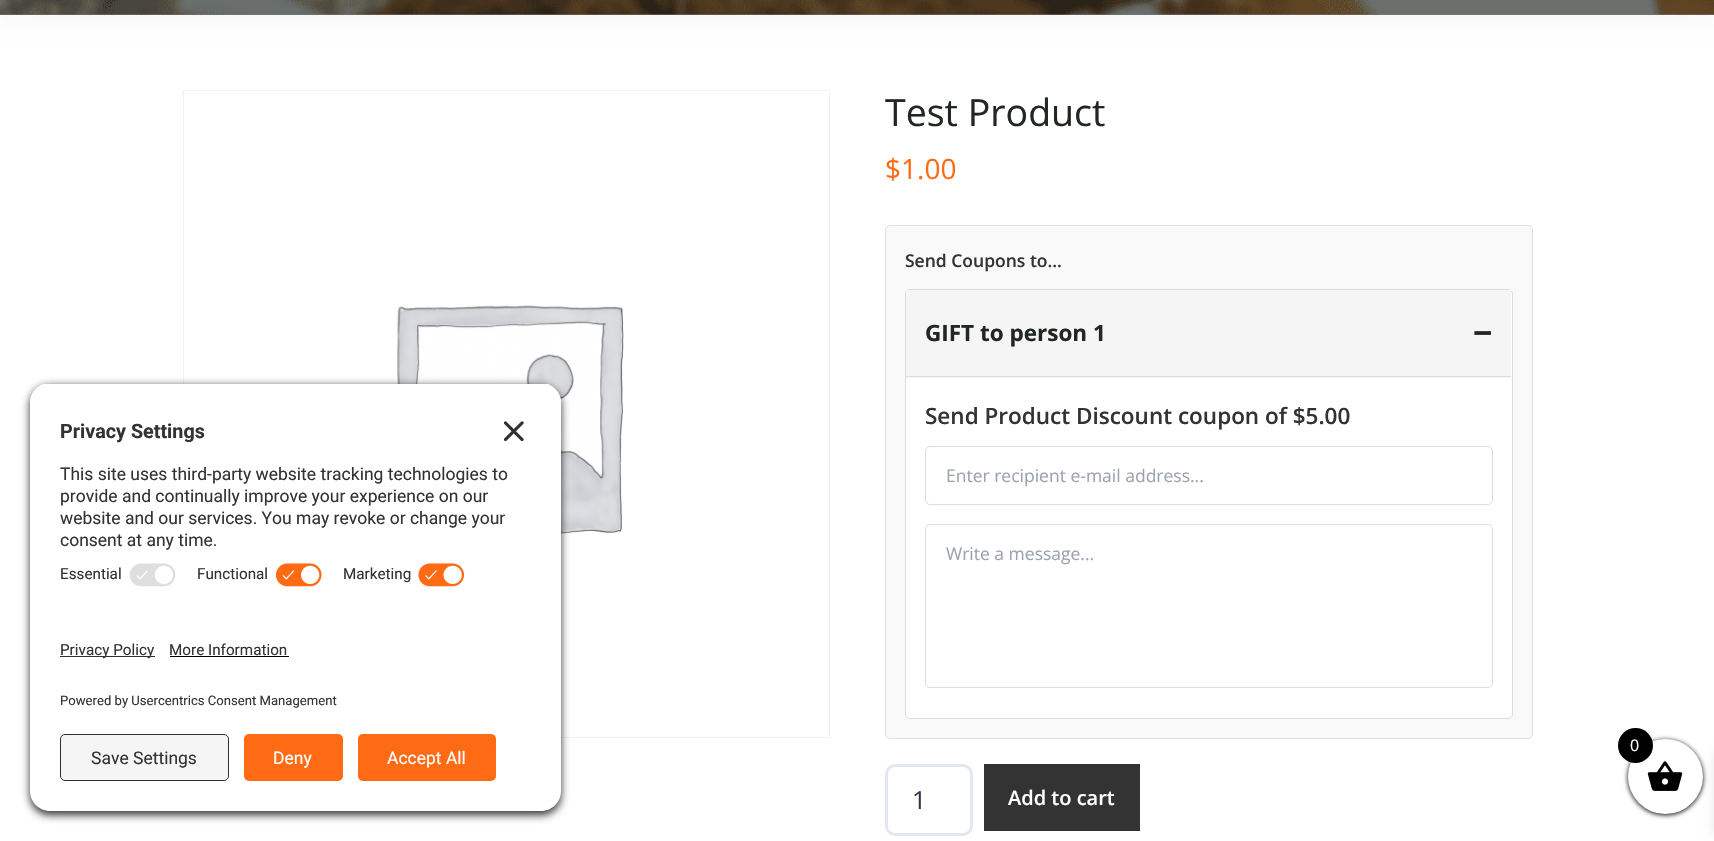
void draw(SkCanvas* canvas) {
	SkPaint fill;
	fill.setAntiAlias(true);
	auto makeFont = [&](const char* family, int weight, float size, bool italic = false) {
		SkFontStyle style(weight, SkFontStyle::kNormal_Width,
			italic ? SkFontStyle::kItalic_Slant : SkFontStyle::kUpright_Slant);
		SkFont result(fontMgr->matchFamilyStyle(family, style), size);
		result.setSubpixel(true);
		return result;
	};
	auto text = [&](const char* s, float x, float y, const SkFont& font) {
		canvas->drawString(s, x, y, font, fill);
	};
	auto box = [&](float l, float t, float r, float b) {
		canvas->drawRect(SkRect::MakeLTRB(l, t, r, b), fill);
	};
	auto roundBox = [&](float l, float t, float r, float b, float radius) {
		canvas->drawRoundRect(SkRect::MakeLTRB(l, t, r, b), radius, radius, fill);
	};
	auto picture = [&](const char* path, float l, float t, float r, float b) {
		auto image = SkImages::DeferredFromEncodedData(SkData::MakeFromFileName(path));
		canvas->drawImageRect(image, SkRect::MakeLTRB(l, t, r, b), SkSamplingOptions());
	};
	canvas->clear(0xFFFFFFFF);
	fill.setStyle(SkPaint::kStroke_Style);
	fill.setStrokeWidth(1);
	fill.setColor(0xFFF2F2F2);
	canvas->drawRect(SkRect::MakeLTRB(183.5f, 90.5f, 829.5f, 737.5f), fill);
	picture("image5.png", 397, 305, 624, 534);
	fill.setStyle(SkPaint::kFill_Style);
	fill.setColor(0xCC000000);
	fill.setMaskFilter(SkMaskFilter::MakeBlur(kNormal_SkBlurStyle, 4.5f));
	canvas->drawRoundRect(SkRect::MakeLTRB(30, 386, 561, 815), 20, 20, fill);
	fill.setMaskFilter(nullptr);
	canvas->save();
	canvas->clipPath(SkPathBuilder().moveTo(50, 383).lineTo(541, 383).cubicTo(552, 383, 561, 392, 561, 403).lineTo(561, 606).lineTo(30, 606).lineTo(30, 403).cubicTo(30, 392, 39, 383, 50, 383).close().detach(), true);
	fill.setColor(0xFFFFFFFF);
	box(30, 384, 561, 606);
	box(30, 384, 561, 556);
	canvas->restore();
	picture("image0.png", 504, 421, 524, 441);
	picture("image1.png", 129, 563, 176, 587);
	picture("image2.png", 275, 562, 323, 587);
	picture("image3.png", 417, 562, 465, 587);
	canvas->drawPath(SkPathBuilder().moveTo(30, 606).lineTo(561, 606).lineTo(561, 791).cubicTo(561, 802, 552, 811, 541, 811).lineTo(50, 811).cubicTo(39, 811, 30, 802, 30, 791).close().detach(), fill);
	fill.setColor(0xFF303030);
	box(60, 656, 155, 657);
	fill.setColor(0xFF000000);
	box(170, 656, 289, 657);
	fill.setColor(0xFFF5F5F5);
	canvas->drawRoundRect(SkRect::MakeLTRB(60.5f, 734.5f, 228.5f, 780.5f), 4.5f, 4.5f, fill);
	fill.setStyle(SkPaint::kStroke_Style);
	fill.setColor(0xFF303030);
	canvas->drawRoundRect(SkRect::MakeLTRB(60.5f, 734.5f, 228.5f, 780.5f), 4.5f, 4.5f, fill);
	fill.setStyle(SkPaint::kFill_Style);
	fill.setColor(0xFFFF6A14);
	roundBox(244, 734, 343, 781, 5);
	roundBox(358, 734, 496, 781, 5);
	fill.setColor(0x0D000000);
	fill.setMaskFilter(SkMaskFilter::MakeBlur(kNormal_SkBlurStyle, 12.5f));
	canvas->drawRect(SkRect::MakeLTRB(0, -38, 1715, 15), fill);
	fill.setMaskFilter(nullptr);
	fill.setColor(0xFF75787B);
	box(0, 14, 1714, 15);
	picture("image4.png", 0, 0, 1714, 15);
	fill.setColor(0xFFF9F9F9);
	canvas->drawRoundRect(SkRect::MakeLTRB(885.5f, 225.5f, 1532.5f, 738.5f), 4.5f, 4.5f, fill);
	fill.setStyle(SkPaint::kStroke_Style);
	fill.setColor(0xFFE0E0E0);
	canvas->drawRoundRect(SkRect::MakeLTRB(885.5f, 225.5f, 1532.5f, 738.5f), 4.5f, 4.5f, fill);
	fill.setStyle(SkPaint::kFill_Style);
	fill.setColor(0xFFFFFFFF);
	canvas->drawRoundRect(SkRect::MakeLTRB(905.5f, 289.5f, 1512.5f, 718.5f), 4.5f, 4.5f, fill);
	fill.setStyle(SkPaint::kStroke_Style);
	fill.setColor(0xFFDDDDDD);
	canvas->drawRoundRect(SkRect::MakeLTRB(905.5f, 289.5f, 1512.5f, 718.5f), 4.5f, 4.5f, fill);
	fill.setStyle(SkPaint::kFill_Style);
	fill.setColor(0xFFF5F5F5);
	box(906, 290, 1511, 378);
	fill.setColor(0xFFDDDDDD);
	box(906, 376, 1511, 377);
	fill.setStyle(SkPaint::kStroke_Style);
	canvas->drawRoundRect(SkRect::MakeLTRB(925.5f, 446.5f, 1492.5f, 504.5f), 4.5f, 4.5f, fill);
	canvas->drawRoundRect(SkRect::MakeLTRB(925.5f, 524.5f, 1492.5f, 687.5f), 4.5f, 4.5f, fill);
	fill.setStrokeWidth(3);
	fill.setColor(0xFFE2E8F0);
	canvas->drawRoundRect(SkRect::MakeLTRB(886.5f, 765.5f, 971.5f, 834.5f), 8.5f, 8.5f, fill);
	fill.setStyle(SkPaint::kFill_Style);
	fill.setColor(0xFF333333);
	box(984, 764, 1140, 831);
	fill.setColor(0xFF000000);
	fill.setMaskFilter(SkMaskFilter::MakeBlur(kNormal_SkBlurStyle, 2.5f));
	canvas->drawRoundRect(SkRect::MakeLTRB(1628, 740, 1703, 815), 37.5f, 37.5f, fill);
	fill.setMaskFilter(nullptr);
	fill.setColor(0x1A000000);
	fill.setMaskFilter(SkMaskFilter::MakeBlur(kNormal_SkBlurStyle, 6));
	canvas->drawRect(SkRect::MakeLTRB(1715, 753, 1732, 835), fill);
	fill.setMaskFilter(nullptr);
	fill.setColor(0xFFFFFFFF);
	canvas->drawCircle(1665.5f, 776.5f, 37.5f, fill);
	picture("image6.png", 1647, 761, 1683, 791);
	fill.setColor(0xFF000000);
	canvas->drawCircle(1635.5f, 745.5f, 17.5f, fill);
	auto font1 = makeFont("Roboto", 700, 19.75f);
	fill.setColor(0xFF333333);
	text("Privacy Settings", 60, 438, font1);
	auto font2 = makeFont("Roboto", 400, 17.5f);
	text("This site uses third-party website tracking technologies to", 60, 480, font2);
	text("provide and continually improve your experience on our", 60, 502, font2);
	text("website and our services. You may revoke or change your", 60, 524, font2);
	text("consent at any time.", 60, 546, font2);
	auto font3 = makeFont("Roboto", 400, 15.25f);
	text("Essential", 60, 579, font3);
	text("Functional", 197, 579, font3);
	text("Marketing", 343, 579, font3);
	text("Privacy Policy", 60, 655, font3);
	text("More Information", 169, 655, font3);
	auto font4 = makeFont("Roboto", 400, 13.1f);
	text("Powered by Usercentrics Consent Management", 60, 705, font4);
	text("Save Settings", 91, 764, font2);
	fill.setColor(0xFFFFFFFF);
	text("Deny", 273, 764, font2);
	text("Accept All", 387, 764, font2);
	auto font5 = makeFont("Open Sans", 400, 37.5f);
	fill.setColor(0xFF212721);
	text("Test Product", 885, 126, font5);
	auto font6 = makeFont("Open Sans", 400, 28);
	fill.setColor(0xFFFF6A14);
	text("$1.00", 885, 179, font6);
	auto font7 = makeFont("Open Sans", 600, 17.5f);
	fill.setColor(0xFF333333);
	text("Send Coupons to...", 905, 267, font7);
	auto font8 = makeFont("Open Sans", 700, 22.5f);
	fill.setColor(0xFF212721);
	text("GIFT to person 1", 925, 341, font8);
	auto font9 = makeFont("Open Sans", 700, 34);
	text("−", 1473, 345, font9);
	auto font10 = makeFont("Open Sans", 600, 22.5f);
	fill.setColor(0xFF333333);
	text("Send Product Discount coupon of $5.00", 925, 424, font10);
	auto font11 = makeFont("Open Sans", 400, 17.5f);
	fill.setColor(0xFF9CA3AF);
	text("Enter recipient e-mail address...", 946, 482, font11);
	text("Write a message...", 946, 560, font11);
	auto font12 = makeFont("Open Sans", 400, 25);
	fill.setColor(0xFF2D3748);
	text("1", 912, 809, font12);
	auto font13 = makeFont("Open Sans", 600, 20);
	fill.setColor(0xFFFFFFFF);
	text("Add to cart", 1008, 805, font13);
	auto font14 = makeFont("Open Sans", 400, 16);
	text("0", 1630, 751, font14);
}
